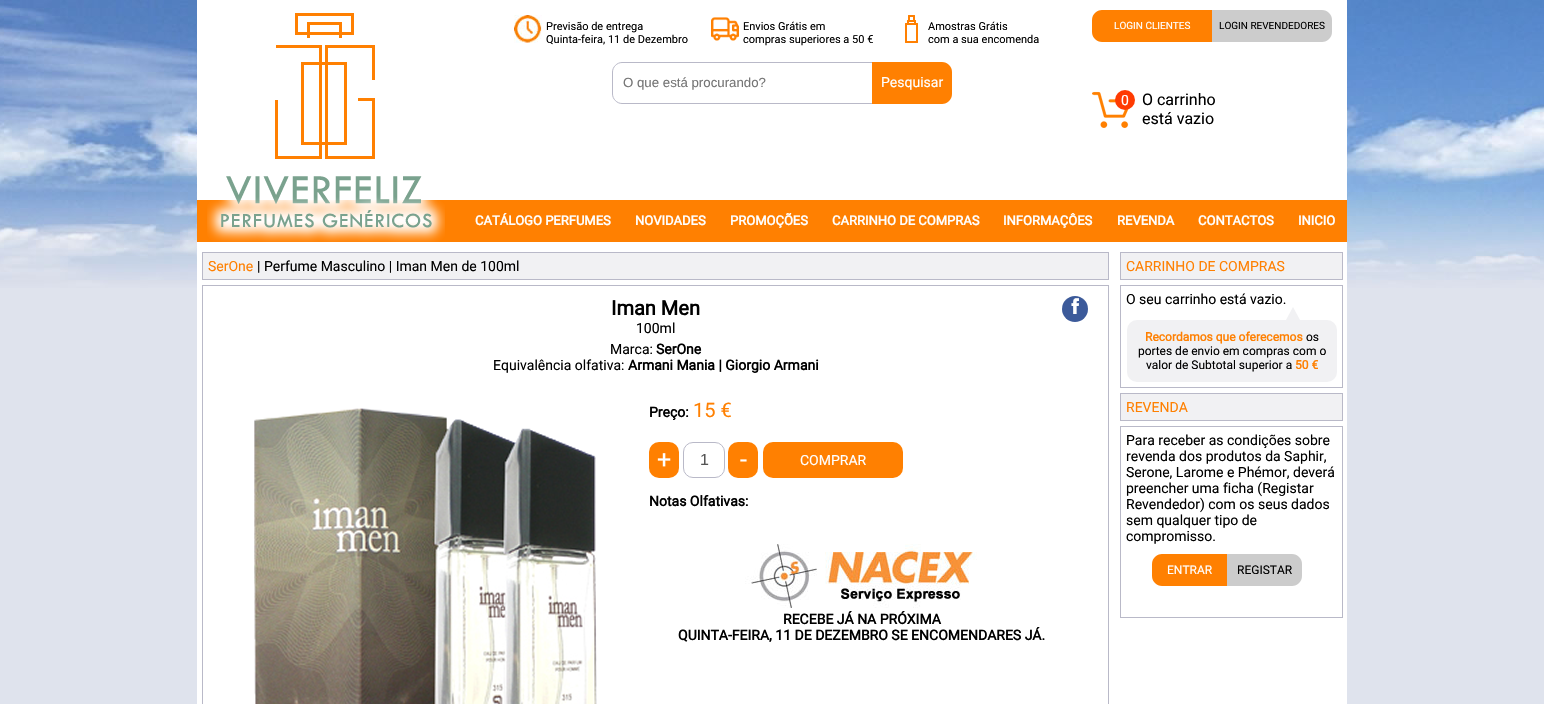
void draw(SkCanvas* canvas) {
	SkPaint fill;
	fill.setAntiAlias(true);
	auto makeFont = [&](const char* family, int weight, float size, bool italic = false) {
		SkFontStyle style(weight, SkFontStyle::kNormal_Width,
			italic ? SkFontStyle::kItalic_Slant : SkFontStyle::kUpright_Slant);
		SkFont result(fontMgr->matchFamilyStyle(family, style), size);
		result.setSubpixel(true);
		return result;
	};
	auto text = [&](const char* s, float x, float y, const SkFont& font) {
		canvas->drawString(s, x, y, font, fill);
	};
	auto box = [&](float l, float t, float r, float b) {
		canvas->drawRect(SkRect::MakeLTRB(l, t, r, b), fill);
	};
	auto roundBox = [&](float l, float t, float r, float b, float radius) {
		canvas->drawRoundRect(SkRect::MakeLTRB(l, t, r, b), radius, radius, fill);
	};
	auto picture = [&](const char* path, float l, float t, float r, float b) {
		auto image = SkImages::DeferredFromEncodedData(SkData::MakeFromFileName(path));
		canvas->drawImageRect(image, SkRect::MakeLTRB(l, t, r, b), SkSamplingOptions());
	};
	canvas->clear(0xFFDFE3ED);
	picture("image0.png", 0, 0, 1544, 288);
	fill.setColor(0xFFFFFFFF);
	box(197, 0, 1347, 704);
	fill.setColor(0xFFFF8001);
	box(197, 200, 1347, 242);
	picture("image1.png", 207, 13, 445, 242);
	picture("image2.png", 514, 15, 542, 43);
	picture("image3.png", 711, 17, 739, 41);
	picture("image4.png", 905, 15, 918, 43);
	fill.setStyle(SkPaint::kStroke_Style);
	fill.setStrokeWidth(1);
	fill.setColor(0xFFB9B9C8);
	canvas->drawPath(SkPathBuilder().moveTo(622, 62.5f).lineTo(875.5f, 62.5f).lineTo(875.5f, 103.5f).lineTo(622, 103.5f).cubicTo(617, 103.5f, 612.5f, 99, 612.5f, 94).lineTo(612.5f, 72).cubicTo(612.5f, 67, 617, 62.5f, 622, 62.5f).close().detach(), fill);
	fill.setStyle(SkPaint::kFill_Style);
	fill.setColor(0xFFFF8001);
	canvas->drawPath(SkPathBuilder().moveTo(872, 62).lineTo(942, 62).cubicTo(947.5f, 62, 952, 66.5f, 952, 72).lineTo(952, 94).cubicTo(952, 99.5f, 947.5f, 104, 942, 104).lineTo(872, 104).close().detach(), fill);
	canvas->drawPath(SkPathBuilder().moveTo(1102, 10).lineTo(1212, 10).lineTo(1212, 42).lineTo(1102, 42).cubicTo(1096.5f, 42, 1092, 37.5f, 1092, 32).lineTo(1092, 20).cubicTo(1092, 14.5f, 1096.5f, 10, 1102, 10).close().detach(), fill);
	fill.setColor(0xFFCCCCCC);
	canvas->drawPath(SkPathBuilder().moveTo(1212, 10).lineTo(1322, 10).cubicTo(1327.5f, 10, 1332, 14.5f, 1332, 20).lineTo(1332, 32).cubicTo(1332, 37.5f, 1327.5f, 42, 1322, 42).lineTo(1212, 42).close().detach(), fill);
	picture("image5.png", 1092, 91, 1129, 128);
	fill.setColor(0xFFFF3B02);
	canvas->drawCircle(1125, 100, 10, fill);
	fill.setColor(0xFFF1F1F3);
	canvas->drawRect(SkRect::MakeLTRB(202.5f, 252.5f, 1108.5f, 279.5f), fill);
	fill.setStyle(SkPaint::kStroke_Style);
	fill.setColor(0xFFB9B9C8);
	canvas->drawRect(SkRect::MakeLTRB(202.5f, 252.5f, 1108.5f, 279.5f), fill);
	canvas->drawRect(SkRect::MakeLTRB(202.5f, 285.5f, 1108.5f, 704.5f), fill);
	fill.setStyle(SkPaint::kFill_Style);
	fill.setColor(0xFF3C5A9A);
	canvas->drawCircle(1075, 309, 13, fill);
	picture("image6.png", 254, 408, 597, 704);
	fill.setColor(0xFFFF8001);
	roundBox(649, 442, 679, 478, 10);
	fill.setStyle(SkPaint::kStroke_Style);
	fill.setColor(0xFFB9B9C8);
	canvas->drawRoundRect(SkRect::MakeLTRB(683.5f, 442.5f, 724.5f, 477.5f), 9.5f, 9.5f, fill);
	fill.setStyle(SkPaint::kFill_Style);
	fill.setColor(0xFFFF8001);
	roundBox(728, 442, 758, 478, 10);
	roundBox(763, 442, 903, 478, 10);
	picture("image7.png", 745, 544, 977, 608);
	fill.setColor(0xFFF1F1F3);
	canvas->drawRect(SkRect::MakeLTRB(1120.5f, 252.5f, 1342.5f, 279.5f), fill);
	fill.setStyle(SkPaint::kStroke_Style);
	fill.setColor(0xFFB9B9C8);
	canvas->drawRect(SkRect::MakeLTRB(1120.5f, 252.5f, 1342.5f, 279.5f), fill);
	canvas->drawRect(SkRect::MakeLTRB(1120.5f, 285.5f, 1342.5f, 387.5f), fill);
	fill.setStyle(SkPaint::kFill_Style);
	fill.setColor(0xFFF1F1F3);
	canvas->drawPath(SkPathBuilder().moveTo(1300, 320).lineTo(1286, 320).lineTo(1293, 307).close().detach(), fill);
	roundBox(1127, 320, 1337, 382, 10);
	canvas->drawRect(SkRect::MakeLTRB(1120.5f, 393.5f, 1342.5f, 420.5f), fill);
	fill.setStyle(SkPaint::kStroke_Style);
	fill.setColor(0xFFB9B9C8);
	canvas->drawRect(SkRect::MakeLTRB(1120.5f, 393.5f, 1342.5f, 420.5f), fill);
	canvas->drawRect(SkRect::MakeLTRB(1120.5f, 426.5f, 1342.5f, 617.5f), fill);
	fill.setStyle(SkPaint::kFill_Style);
	fill.setColor(0xFFFF8001);
	canvas->drawPath(SkPathBuilder().moveTo(1162, 554).lineTo(1227, 554).lineTo(1227, 586).lineTo(1162, 586).cubicTo(1156.5f, 586, 1152, 581.5f, 1152, 576).lineTo(1152, 564).cubicTo(1152, 558.5f, 1156.5f, 554, 1162, 554).close().detach(), fill);
	fill.setColor(0xFFCCCCCC);
	canvas->drawPath(SkPathBuilder().moveTo(1227, 554).lineTo(1292, 554).cubicTo(1297.5f, 554, 1302, 558.5f, 1302, 564).lineTo(1302, 576).cubicTo(1302, 581.5f, 1297.5f, 586, 1292, 586).lineTo(1227, 586).close().detach(), fill);
	auto font1 = makeFont("Roboto", 400, 11);
	fill.setColor(0xFF000000);
	text("Previsão de entrega", 546, 30, font1);
	text("Quinta-feira, 11 de Dezembro", 546, 43, font1);
	text("Envios Grátis em", 743, 30, font1);
	text("compras superiores a 50 €", 743, 43, font1);
	text("Amostras Grátis", 928, 30, font1);
	text("com a sua encomenda", 928, 43, font1);
	auto font2 = makeFont("Liberation Sans", 400, 13.25f);
	fill.setColor(0xFF757575);
	text("O que está procurando?", 623, 87, font2);
	auto font3 = makeFont("Roboto", 400, 14);
	fill.setColor(0xFFFFFFFF);
	text("Pesquisar", 881, 87, font3);
	auto font4 = makeFont("Roboto", 400, 10);
	text("LOGIN CLIENTES", 1114, 29, font4);
	fill.setColor(0xFF000000);
	text("LOGIN REVENDEDORES", 1219, 29, font4);
	fill.setColor(0xFFFFFFFF);
	text("0", 1121, 105, font3);
	auto font5 = makeFont("Roboto", 400, 16);
	fill.setColor(0xFF000000);
	text("O carrinho", 1142, 105, font5);
	text("está vazio", 1142, 124, font5);
	auto font6 = makeFont("Roboto", 700, 13);
	fill.setColor(0xFFFFFFFF);
	text("CATÁLOGO PERFUMES", 475, 225, font6);
	text("NOVIDADES", 635, 225, font6);
	text("PROMOÇÕES", 730, 225, font6);
	text("CARRINHO DE COMPRAS", 832, 225, font6);
	text("INFORMAÇÔES", 1003, 225, font6);
	text("REVENDA", 1117, 225, font6);
	text("CONTACTOS", 1198, 225, font6);
	text("INICIO", 1298, 225, font6);
	fill.setColor(0xFFFF8001);
	text("SerOne", 208, 271, font3);
	fill.setColor(0xFF000000);
	text("| Perfume Masculino | Iman Men de 100ml", 257, 271, font3);
	auto font7 = makeFont("Roboto", 700, 20);
	text("Iman Men", 611, 315, font7);
	auto font8 = makeFont("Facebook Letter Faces", 400, 20);
	fill.setColor(0xFFFFFFFF);
	text("f", 1071, 314, font8);
	fill.setColor(0xFF000000);
	text("100ml", 636, 333, font3);
	text("Marca:", 610, 354, font3);
	auto font9 = makeFont("Roboto", 700, 14);
	text("SerOne", 656, 354, font9);
	text("Equivalência olfativa:", 493, 370, font3);
	text("Armani Mania | Giorgio Armani", 628, 370, font9);
	text("Preço:", 649, 417, font9);
	auto font10 = makeFont("Roboto", 400, 20);
	fill.setColor(0xFFFF8001);
	text("15 €", 693, 417, font10);
	auto font11 = makeFont("Roboto", 400, 25);
	fill.setColor(0xFFFFFFFF);
	text("+", 657, 468, font11);
	auto font12 = makeFont("Liberation Sans", 400, 16);
	fill.setColor(0xFF545454);
	text("1", 700, 465, font12);
	fill.setColor(0xFFFFFFFF);
	text("-", 740, 468, font11);
	text("COMPRAR", 800, 465, font3);
	fill.setColor(0xFF000000);
	text("Notas Olfativas:", 649, 506, font9);
	text("RECEBE JÁ NA PRÓXIMA", 783, 624, font9);
	text("QUINTA-FEIRA, 11 DE DEZEMBRO SE ENCOMENDARES JÁ.", 678, 640, font9);
	fill.setColor(0xFFFF8001);
	text("CARRINHO DE COMPRAS", 1126, 271, font3);
	fill.setColor(0xFF000000);
	text("O seu carrinho está vazio.", 1126, 304, font3);
	auto font13 = makeFont("Roboto", 700, 12);
	fill.setColor(0xFFFF8001);
	text("Recordamos que oferecemos", 1145, 341, font13);
	auto font14 = makeFont("Roboto", 400, 12);
	fill.setColor(0xFF000000);
	text("os", 1306, 341, font14);
	text("portes de envio em compras com o", 1138, 355, font14);
	text("valor de Subtotal superior a", 1146, 369, font14);
	fill.setColor(0xFFFF8001);
	text("50 €", 1295, 369, font13);
	text("REVENDA", 1126, 412, font3);
	fill.setColor(0xFF000000);
	text("Para receber as condições sobre", 1126, 445, font3);
	text("revenda dos produtos da Saphir,", 1126, 461, font3);
	text("Serone, Larome e Phémor, deverá", 1126, 477, font3);
	text("preencher uma ficha (Registar", 1126, 493, font3);
	text("Revendedor) com os seus dados", 1126, 509, font3);
	text("sem qualquer tipo de", 1126, 525, font3);
	text("compromisso.", 1126, 541, font3);
	fill.setColor(0xFFFFFFFF);
	text("ENTRAR", 1167, 574, font14);
	fill.setColor(0xFF000000);
	text("REGISTAR", 1237, 574, font14);
}
